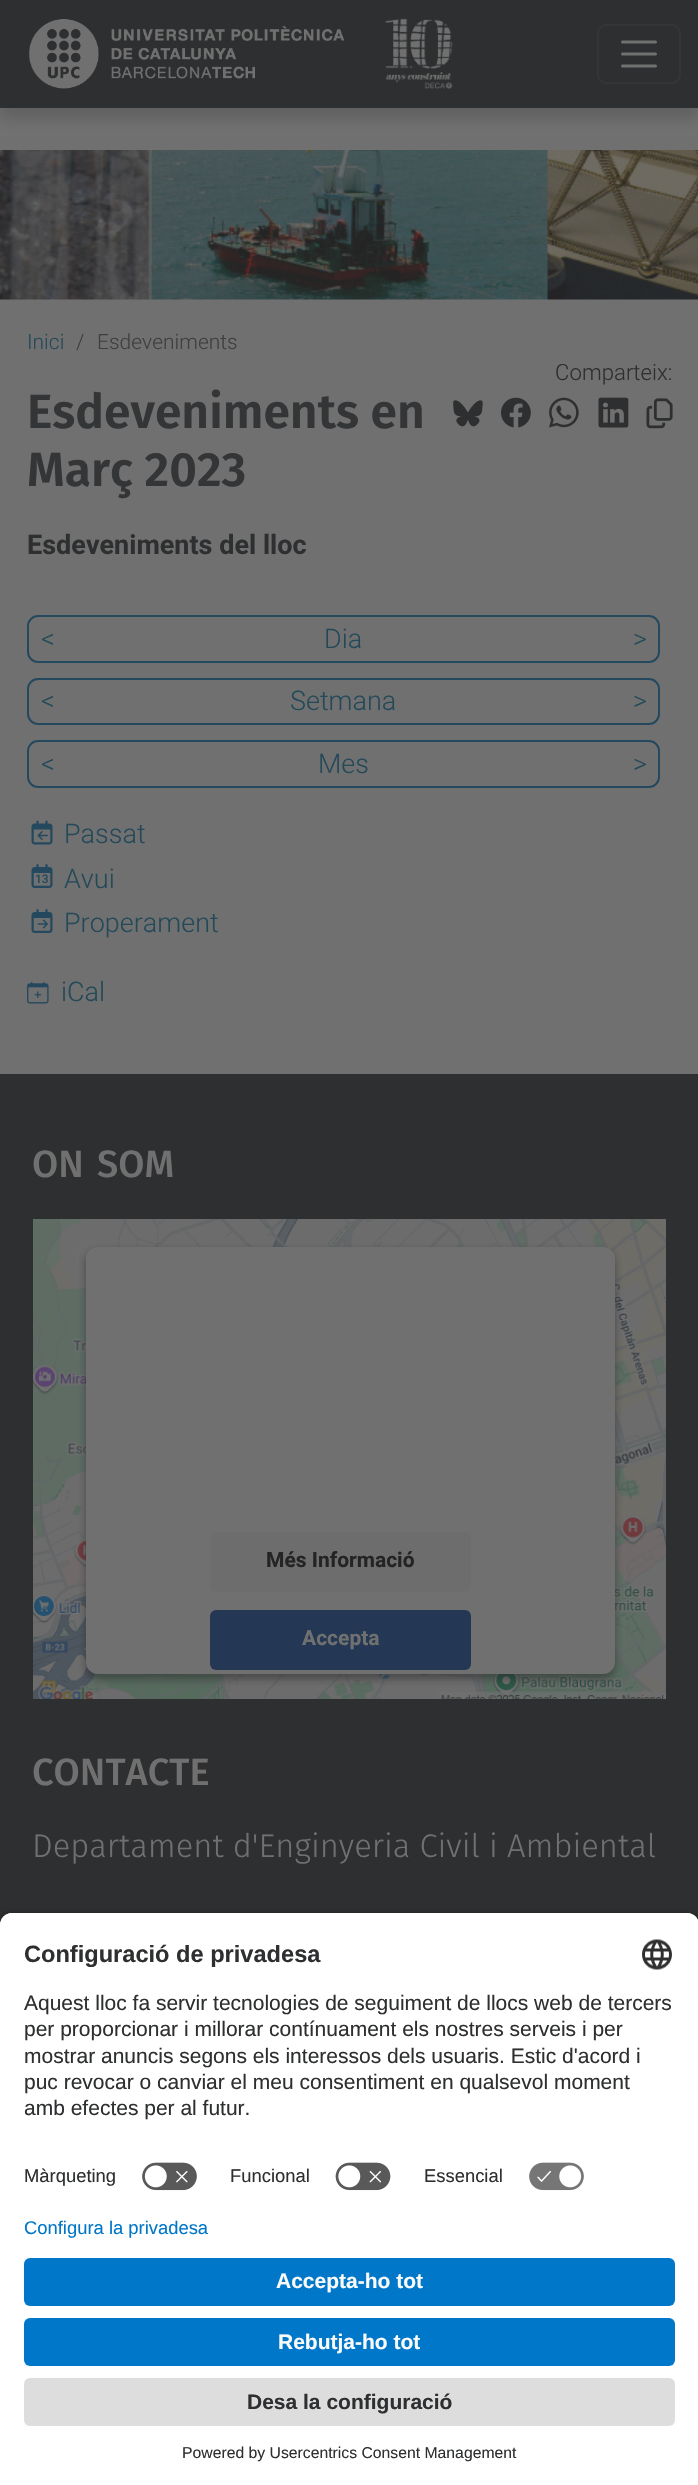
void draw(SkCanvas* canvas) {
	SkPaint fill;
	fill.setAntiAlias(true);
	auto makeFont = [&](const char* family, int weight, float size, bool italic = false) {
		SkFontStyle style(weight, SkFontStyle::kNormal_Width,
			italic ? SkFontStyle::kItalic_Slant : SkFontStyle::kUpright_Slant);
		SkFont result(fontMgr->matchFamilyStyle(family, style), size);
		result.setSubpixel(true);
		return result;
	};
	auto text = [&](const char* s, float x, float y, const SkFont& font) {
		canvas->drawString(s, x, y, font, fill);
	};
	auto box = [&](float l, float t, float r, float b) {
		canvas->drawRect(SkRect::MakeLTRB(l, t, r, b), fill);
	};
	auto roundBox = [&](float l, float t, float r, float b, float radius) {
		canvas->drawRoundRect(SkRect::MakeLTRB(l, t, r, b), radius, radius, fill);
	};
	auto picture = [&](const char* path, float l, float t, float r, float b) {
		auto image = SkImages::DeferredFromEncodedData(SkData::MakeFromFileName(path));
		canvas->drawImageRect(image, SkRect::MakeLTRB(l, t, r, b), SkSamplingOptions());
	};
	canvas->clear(0xFF707070);
	fill.setColor(0x33242424);
	fill.setMaskFilter(SkMaskFilter::MakeBlur(kNormal_SkBlurStyle, 6));
	canvas->drawRect(SkRect::MakeLTRB(0, 11, 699, 119), fill);
	fill.setMaskFilter(nullptr);
	fill.setColor(0xFF2E2F30);
	box(0, 0, 698, 108);
	picture("image0.png", 29, 19, 345, 89);
	picture("image1.png", 385, 18, 453, 90);
	fill.setStyle(SkPaint::kStroke_Style);
	fill.setStrokeWidth(2);
	fill.setColor(0xFF343536);
	canvas->drawRoundRect(SkRect::MakeLTRB(598, 25, 680, 83), 8, 8, fill);
	fill.setStrokeWidth(3);
	fill.setStrokeCap(SkPaint::kRound_Cap);
	fill.setColor(0xFF707070);
	canvas->drawPath(SkPathBuilder().moveTo(622.5f, 42).lineTo(655.5f, 42).moveTo(622.5f, 54).lineTo(655.5f, 54).moveTo(622.5f, 66).lineTo(655.5f, 66).detach(), fill);
	picture("image2.png", 0, 150, 698, 300);
	picture("image3.png", 453, 400, 483, 427);
	picture("image4.png", 501, 397, 531, 428);
	picture("image5.png", 549, 397, 579, 428);
	picture("image6.png", 598, 397, 629, 428);
	picture("image7.png", 646, 398, 673, 429);
	fill.setStrokeWidth(2);
	fill.setStrokeCap(SkPaint::kButt_Cap);
	fill.setColor(0xFF24495E);
	canvas->drawRoundRect(SkRect::MakeLTRB(28, 616, 659, 662), 10, 10, fill);
	canvas->drawRoundRect(SkRect::MakeLTRB(28, 679, 659, 724), 10, 10, fill);
	canvas->drawRoundRect(SkRect::MakeLTRB(28, 741, 659, 787), 10, 10, fill);
	picture("image8.png", 31, 820, 53, 845);
	picture("image9.png", 37, 831, 48, 840);
	picture("image11.png", 31, 909, 53, 933);
	picture("image12.png", 37, 919, 48, 929);
	picture("image13.png", 27, 981, 49, 1004);
	fill.setStyle(SkPaint::kFill_Style);
	fill.setColor(0xFF2E2F30);
	box(0, 1074, 698, 1925);
	picture("image14.png", 33, 1219, 666, 1699);
	fill.setColor(0x80242424);
	fill.setMaskFilter(SkMaskFilter::MakeBlur(kNormal_SkBlurStyle, 4.5f));
	canvas->drawRoundRect(SkRect::MakeLTRB(86, 1251, 615, 1679), 12, 12, fill);
	fill.setMaskFilter(nullptr);
	fill.setColor(0xFF707070);
	roundBox(86, 1247, 615, 1674, 12);
	fill.setColor(0xFF6D6D6D);
	roundBox(210, 1532, 471, 1592, 6);
	fill.setColor(0xFF243855);
	roundBox(210, 1610, 471, 1670, 6);
	fill.setColor(0xCC000000);
	fill.setMaskFilter(SkMaskFilter::MakeBlur(kNormal_SkBlurStyle, 5));
	canvas->drawRoundRect(SkRect::MakeLTRB(0, 1917, 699, 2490), 12, 12, fill);
	fill.setMaskFilter(nullptr);
	fill.setColor(0xFFFFFFFF);
	canvas->drawPath(SkPathBuilder().moveTo(12, 1913).lineTo(687, 1913).cubicTo(693.5f, 1913, 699, 1918.5f, 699, 1925).lineTo(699, 2219).lineTo(0, 2219).lineTo(0, 1925).cubicTo(0, 1918.5f, 5.5f, 1913, 12, 1913).close().detach(), fill);
	canvas->drawPath(SkPathBuilder().moveTo(12, 1913).lineTo(687, 1913).cubicTo(693.5f, 1913, 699, 1918.5f, 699, 1925).lineTo(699, 2153).lineTo(0, 2153).lineTo(0, 1925).cubicTo(0, 1918.5f, 5.5f, 1913, 12, 1913).close().detach(), fill);
	picture("image15.png", 642, 1939, 672, 1970);
	picture("image16.png", 142, 2162, 197, 2191);
	picture("image17.png", 335, 2162, 391, 2191);
	picture("image18.png", 529, 2162, 584, 2191);
	box(0, 2219, 698, 2485);
	fill.setColor(0xFF0077C8);
	roundBox(24, 2258, 675, 2306, 6);
	roundBox(24, 2318, 675, 2366, 6);
	fill.setColor(0xFFDDDDDD);
	roundBox(24, 2378, 675, 2426, 6);
	auto font1 = makeFont("Roboto", 300, 21);
	fill.setColor(0xFF244959);
	text("Inici", 27, 349, font1);
	fill.setColor(0xFF3E3F40);
	text("/", 76, 349, font1);
	text("Esdeveniments", 97, 349, font1);
	auto font2 = makeFont("Roboto", 300, 22.25f);
	fill.setColor(0xFF2E2F30);
	text("Comparteix:", 555, 380, font2);
	auto font3 = makeFont("Fira Sans", 600, 48);
	fill.setColor(0xFF333537);
	text("Esdeveniments en", 27, 428, font3);
	text("Març 2023", 27, 486, font3);
	auto font4 = makeFont("Roboto", 700, 27);
	fill.setColor(0xFF2E2F30);
	text("Esdeveniments del lloc", 27, 554, font4);
	auto font5 = makeFont("Roboto", 300, 27);
	fill.setColor(0xFF244959);
	text("<", 41, 648, font5);
	text("Dia", 324, 648, font5);
	text(">", 633, 648, font5);
	text("<", 41, 710, font5);
	text("Setmana", 290, 710, font5);
	text(">", 633, 710, font5);
	text("<", 41, 773, font5);
	text("Mes", 318, 773, font5);
	text(">", 633, 773, font5);
	text("Passat", 64, 843, font5);
	auto font6 = makeFont("Roboto", 500, 12);
	text("13", 35, 883, font6);
	picture("image10.png", 31, 864, 53, 888);
	text("Avui", 64, 888, font5);
	text("Properament", 64, 932, font5);
	text("iCal", 61, 1001, font5);
	auto font7 = makeFont("Fira Sans", 500, 38);
	fill.setColor(0xFF707070);
	text("ON", 32, 1177, font7);
	text("SOM", 97, 1177, font7);
	auto font8 = makeFont("Roboto", 700, 21);
	fill.setColor(0xFF242424);
	text("Més Informació", 266, 1567, font8);
	fill.setColor(0xFF707070);
	text("Accepta", 302, 1645, font8);
	text("CONTACTE", 32, 1785, font7);
	auto font9 = makeFont("Fira Sans", 300, 32.75f);
	text("Departament d'Enginyeria Civil i Ambiental", 32, 1857, font9);
	auto font10 = makeFont("Liberation Sans", 700, 23.6f);
	fill.setColor(0xFF2E2F30);
	text("Configuració de privadesa", 24, 1962, font10);
	auto font11 = makeFont("Liberation Sans", 400, 21);
	text("Aquest lloc fa servir tecnologies de seguiment de llocs web de tercers", 24, 2010, font11);
	text("per proporcionar i millorar contínuament els nostres serveis i per", 24, 2036, font11);
	text("mostrar anuncis segons els interessos dels usuaris. Estic d'acord i", 24, 2063, font11);
	text("puc revocar o canviar el meu consentiment en qualsevol moment", 24, 2089, font11);
	text("amb efectes per al futur.", 24, 2115, font11);
	auto font12 = makeFont("Liberation Sans", 400, 18.4f);
	text("Màrqueting", 24, 2182, font12);
	text("Funcional", 230, 2182, font12);
	text("Essencial", 424, 2182, font12);
	fill.setColor(0xFF0077C8);
	text("Configura la privadesa", 24, 2234, font12);
	auto font13 = makeFont("Liberation Sans", 700, 21);
	fill.setColor(0xFFFAFAFA);
	text("Accepta-ho tot", 276, 2288, font13);
	text("Rebutja-ho tot", 278, 2349, font13);
	fill.setColor(0xFF2E2F30);
	text("Desa la configuració", 247, 2409, font13);
	auto font14 = makeFont("Liberation Sans", 400, 15.75f);
	text("Powered by Usercentrics Consent Management", 182, 2458, font14);
}
